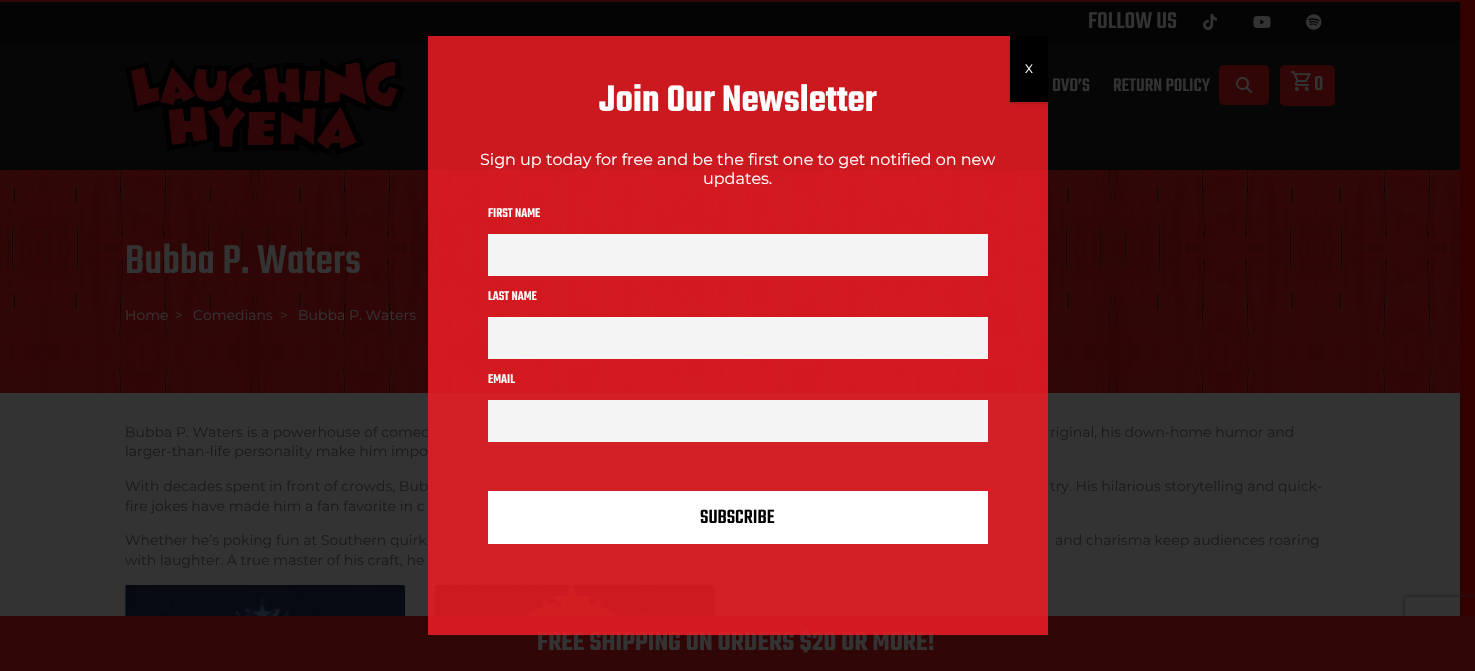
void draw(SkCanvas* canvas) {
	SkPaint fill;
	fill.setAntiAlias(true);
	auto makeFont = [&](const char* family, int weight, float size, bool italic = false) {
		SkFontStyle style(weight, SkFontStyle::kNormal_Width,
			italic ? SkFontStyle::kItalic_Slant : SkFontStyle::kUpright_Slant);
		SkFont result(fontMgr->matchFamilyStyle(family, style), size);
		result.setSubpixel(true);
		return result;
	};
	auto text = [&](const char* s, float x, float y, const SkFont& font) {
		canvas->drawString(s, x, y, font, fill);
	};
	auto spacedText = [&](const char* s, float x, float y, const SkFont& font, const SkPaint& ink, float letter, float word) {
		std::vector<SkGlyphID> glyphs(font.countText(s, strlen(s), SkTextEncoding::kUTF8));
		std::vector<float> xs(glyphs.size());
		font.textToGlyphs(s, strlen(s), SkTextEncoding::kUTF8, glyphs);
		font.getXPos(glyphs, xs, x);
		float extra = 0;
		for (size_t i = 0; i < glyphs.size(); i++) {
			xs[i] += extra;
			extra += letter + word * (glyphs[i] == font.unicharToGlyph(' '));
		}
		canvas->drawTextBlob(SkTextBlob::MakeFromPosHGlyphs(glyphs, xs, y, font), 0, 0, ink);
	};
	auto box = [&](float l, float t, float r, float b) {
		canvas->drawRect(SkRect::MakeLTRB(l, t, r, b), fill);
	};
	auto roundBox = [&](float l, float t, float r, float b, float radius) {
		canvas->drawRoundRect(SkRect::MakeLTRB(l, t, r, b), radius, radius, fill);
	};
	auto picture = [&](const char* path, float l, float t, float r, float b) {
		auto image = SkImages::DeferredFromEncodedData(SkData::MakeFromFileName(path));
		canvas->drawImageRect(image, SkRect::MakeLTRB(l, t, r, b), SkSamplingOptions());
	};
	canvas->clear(0xFF330000);
	fill.setColor(0xFF333333);
	box(0, 393, 1460, 616);
	fill.setColor(0xFF300607);
	box(0, 0, 1460, 2);
	fill.setColor(0xFF040404);
	box(0, 2, 1460, 42);
	picture("image0.png", 1203, 14, 1217, 30);
	picture("image1.png", 1253, 16, 1271, 28);
	picture("image2.png", 1306, 14, 1322, 30);
	fill.setColor(0xFF060606);
	box(0, 42, 1460, 170);
	picture("image3.png", 125, 57, 405, 155);
	fill.setColor(0xFF300607);
	roundBox(1219, 65, 1269, 105, 5);
	picture("image4.png", 1236, 77, 1252, 93);
	roundBox(1280, 65, 1335, 106, 5);
	picture("image5.png", 1291, 71, 1311, 91);
	picture("image6.png", 0, 170, 1460, 393);
	fill.setColor(0x3D000000);
	fill.setMaskFilter(SkMaskFilter::MakeBlur(kNormal_SkBlurStyle, 1));
	canvas->drawRoundRect(SkRect::MakeLTRB(125, 586, 405, 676), 2, 2, fill);
	fill.setMaskFilter(nullptr);
	picture("image7.png", 125, 585, 405, 616);
	fill.setMaskFilter(SkMaskFilter::MakeBlur(kNormal_SkBlurStyle, 1));
	canvas->drawRoundRect(SkRect::MakeLTRB(435, 586, 715, 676), 2, 2, fill);
	fill.setMaskFilter(nullptr);
	picture("image8.png", 435, 585, 715, 616);
	canvas->save();
	canvas->clipPath(SkPathBuilder(SkPathFillType::kEvenOdd).moveTo(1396, 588).lineTo(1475, 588).lineTo(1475, 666).lineTo(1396, 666).close().moveTo(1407, 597).lineTo(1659, 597).cubicTo(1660, 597, 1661, 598, 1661, 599).lineTo(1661, 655).cubicTo(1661, 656, 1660, 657, 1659, 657).lineTo(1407, 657).cubicTo(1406, 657, 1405, 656, 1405, 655).lineTo(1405, 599).cubicTo(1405, 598, 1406, 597, 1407, 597).close().detach(), true);
	fill.setColor(0xFF1A1A1A);
	fill.setMaskFilter(SkMaskFilter::MakeBlur(kNormal_SkBlurStyle, 2.5f));
	canvas->drawRoundRect(SkRect::MakeLTRB(1405, 597, 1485, 657), 2, 2, fill);
	fill.setMaskFilter(nullptr);
	canvas->restore();
	fill.setColor(0xFF300607);
	box(0, 616, 1475, 671);
	auto font1 = makeFont("Teko", 500, 25);
	fill.setColor(0xFF333333);
	text("FOLLOW US", 1088, 28, font1);
	auto font2 = makeFont("Teko", 500, 20);
	text("DVD’S", 1052, 91, font2);
	text("RETURN POLICY", 1113, 91, font2);
	auto font3 = makeFont("Teko", 500, 22);
	spacedText("0", 1314, 90, font3, fill, 2, 0);
	auto font4 = makeFont("Teko", 500, 44);
	spacedText("Bubba P. Waters", 125, 273, font4, fill, 0.25f, 0);
	auto font5 = makeFont("Montserrat", 100, 14);
	text("Home", 125, 320, font5);
	text(">", 175, 320, font5);
	text("Comedians", 193, 320, font5);
	text(">", 280, 320, font5);
	text("Bubba P. Waters", 298, 320, font5);
	fill.setColor(0xFF1A1A1A);
	text("Bubba P. Waters is a powerhouse of comed", 125, 437, font5);
	text("riginal, his down-home humor and", 1050, 437, font5);
	text("larger-than-life personality make him impo", 125, 456, font5);
	text("With decades spent in front of crowds, Bub", 125, 491, font5);
	text("try. His hilarious storytelling and quick-", 1050, 491, font5);
	text("fire jokes have made him a fan favorite in c", 125, 511, font5);
	text("Whether he’s poking fun at Southern quirk", 125, 545, font5);
	text("and charisma keep audiences roaring", 1055, 545, font5);
	text("with laughter. A true master of his craft, he", 125, 565, font5);
	auto font6 = makeFont("Teko", 600, 28);
	fill.setColor(0xFF333333);
	text("FREE SHIPPING ON ORDERS $20 OR MORE!", 537, 650, font6);
	fill.setColor(0xD9EF1C25);
	box(428, 36, 1048, 635);
	fill.setColor(0x3B020202);
	fill.setMaskFilter(SkMaskFilter::MakeBlur(kNormal_SkBlurStyle, 1.5f));
	canvas->drawRect(SkRect::MakeLTRB(1011, 37, 1049, 103), fill);
	fill.setMaskFilter(nullptr);
	fill.setColor(0xFF000000);
	box(1010, 36, 1048, 102);
	auto font7 = makeFont("Montserrat", 100, 12);
	fill.setColor(0xFFFFFFFF);
	text("X", 1025, 73, font7);
	auto font8 = makeFont("Teko", 500, 14);
	text("EMAIL", 488, 383, font8);
	text("LAST NAME", 488, 300, font8);
	text("FIRST NAME", 488, 217, font8);
	box(488, 491, 988, 544);
	auto font9 = makeFont("Teko", 500, 21);
	fill.setColor(0xFF000000);
	text("SUBSCRIBE", 700, 523, font9);
	auto font10 = makeFont("Montserrat", 100, 16);
	fill.setColor(0xFFFFFFFF);
	text("updates.", 703, 184, font10);
	text("Sign up today for free and be the first one to get notified on new", 480, 165, font10);
	fill.setColor(0xFFF4F4F4);
	box(488, 400, 988, 442);
	box(488, 317, 988, 359);
	box(488, 234, 988, 276);
	auto font11 = makeFont("Teko", 600, 40);
	fill.setColor(0xFFFFFFFF);
	text("Join Our Newsletter", 599, 111, font11);
}
